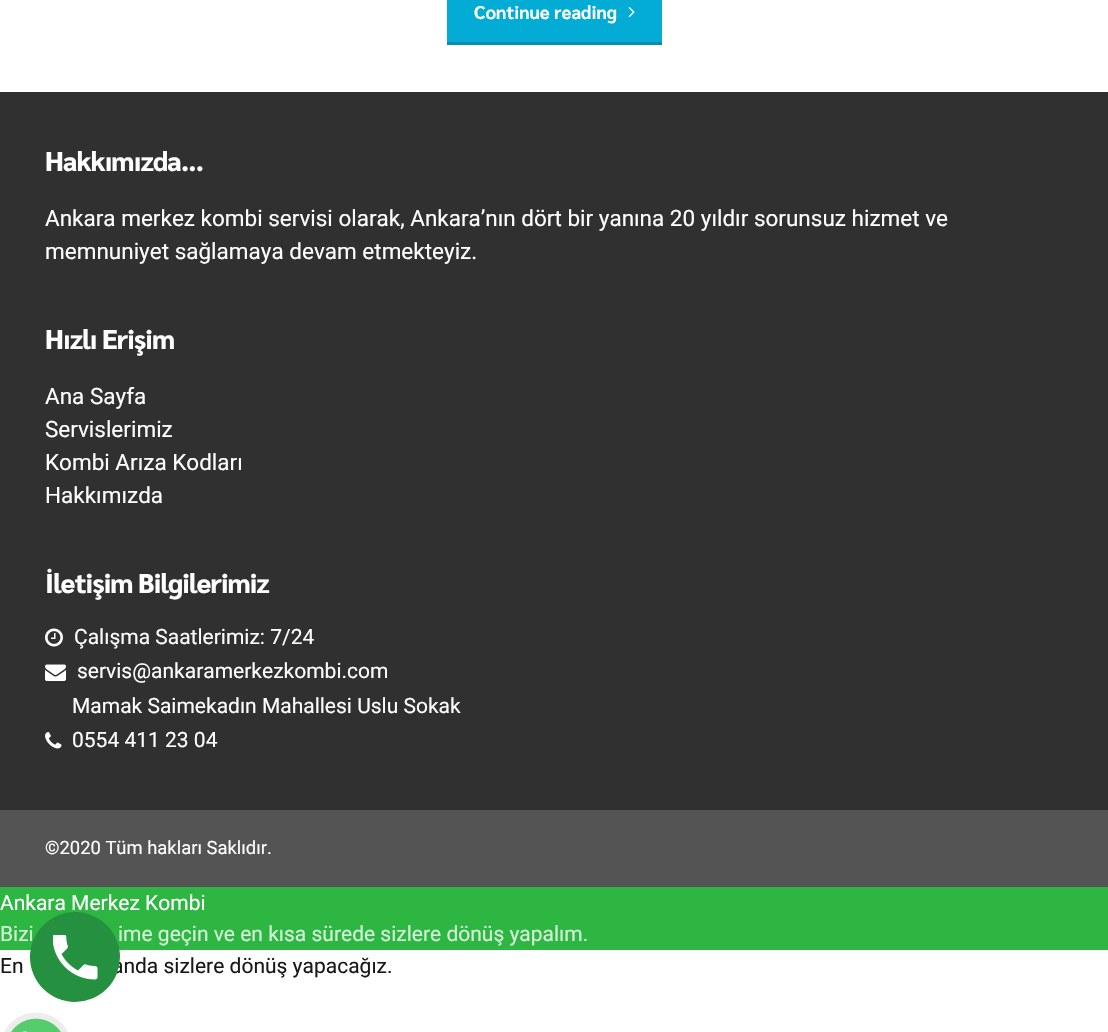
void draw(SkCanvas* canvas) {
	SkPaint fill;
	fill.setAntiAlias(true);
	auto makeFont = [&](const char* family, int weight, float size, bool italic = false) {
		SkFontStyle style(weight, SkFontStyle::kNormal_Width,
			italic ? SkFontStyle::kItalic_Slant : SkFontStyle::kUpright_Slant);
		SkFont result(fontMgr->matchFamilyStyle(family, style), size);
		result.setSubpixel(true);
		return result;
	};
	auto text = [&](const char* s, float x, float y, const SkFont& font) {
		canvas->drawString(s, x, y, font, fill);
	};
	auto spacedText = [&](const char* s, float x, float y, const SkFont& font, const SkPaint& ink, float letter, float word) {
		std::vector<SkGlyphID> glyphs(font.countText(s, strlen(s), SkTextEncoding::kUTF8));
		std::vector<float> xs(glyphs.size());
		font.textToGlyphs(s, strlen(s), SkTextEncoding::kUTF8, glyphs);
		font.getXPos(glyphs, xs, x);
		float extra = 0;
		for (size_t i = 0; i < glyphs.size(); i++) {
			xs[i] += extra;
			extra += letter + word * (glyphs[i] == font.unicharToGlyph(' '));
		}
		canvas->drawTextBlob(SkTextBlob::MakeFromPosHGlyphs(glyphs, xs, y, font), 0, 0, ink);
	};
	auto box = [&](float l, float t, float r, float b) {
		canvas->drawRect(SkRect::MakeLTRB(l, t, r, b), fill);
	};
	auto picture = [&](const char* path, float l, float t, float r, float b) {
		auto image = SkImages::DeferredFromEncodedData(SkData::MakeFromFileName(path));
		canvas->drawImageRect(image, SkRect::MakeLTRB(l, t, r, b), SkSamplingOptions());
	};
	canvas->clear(0xFFFFFFFF);
	fill.setColor(0xFF03ACD5);
	box(447, 0, 662, 42);
	fill.setColor(0xFF078EAF);
	box(447, 42, 662, 45);
	picture("image0.png", 628, 7, 635, 18);
	fill.setColor(0xFF303030);
	box(0, 92, 1108, 810);
	picture("image1.png", 45, 628, 63, 647);
	picture("image2.png", 45, 664, 66, 681);
	picture("image3.png", 45, 732, 62, 749);
	fill.setColor(0xFF545454);
	box(0, 810, 1108, 887);
	fill.setColor(0xFF2DB742);
	box(0, 887, 1108, 950);
	picture("image4.png", 4, 1013, 68, 1032);
	auto font1 = makeFont("Sarabun", 700, 18.4f);
	fill.setColor(0xFFFFFFFF);
	text("Continue reading", 474, 19, font1);
	auto font2 = makeFont("Sarabun", 800, 27);
	spacedText("Hakkımızda...", 45, 171, font2, fill, -0.8f, 0);
	auto font3 = makeFont("Roboto", 400, 22.5f);
	text("Ankara merkez kombi servisi olarak, Ankara’nın dört bir yanına 20 yıldır sorunsuz hizmet ve", 45, 226, font3);
	text("memnuniyet sağlamaya devam etmekteyiz.", 45, 259, font3);
	spacedText("Hızlı Erişim", 45, 349, font2, fill, -0.8f, 0);
	text("Ana Sayfa", 45, 404, font3);
	text("Servislerimiz", 45, 437, font3);
	text("Kombi Arıza Kodları", 45, 470, font3);
	text("Hakkımızda", 45, 503, font3);
	spacedText("İletişim Bilgilerimiz", 45, 593, font2, fill, -0.8f, 0);
	auto font4 = makeFont("Roboto", 400, 21);
	text("Çalışma Saatlerimiz: 7/24", 74, 644, font4);
	text("servis@ankaramerkezkombi.com", 77, 678, font4);
	text("Mamak Saimekadın Mahallesi Uslu Sokak", 72, 713, font4);
	text("0554 411 23 04", 72, 747, font4);
	auto font5 = makeFont("Roboto", 400, 18.4f);
	text("©2020 Tüm hakları Saklıdır.", 45, 854, font5);
	text("Ankara Merkez Kombi", 0, 910, font4);
	fill.setColor(0xFFD5F1D9);
	text("Bizi", 0, 941, font4);
	text("ime geçin ve en kısa sürede sizlere dönüş yapalım.", 118, 941, font4);
	fill.setColor(0xFF181818);
	text("En", 0, 973, font4);
	text("anda sizlere dönüş yapacağız.", 112, 973, font4);
	fill.setColor(0xFF269041);
	canvas->drawCircle(75, 957, 45, fill);
	picture("image5.png", 53, 935, 98, 980);
}
